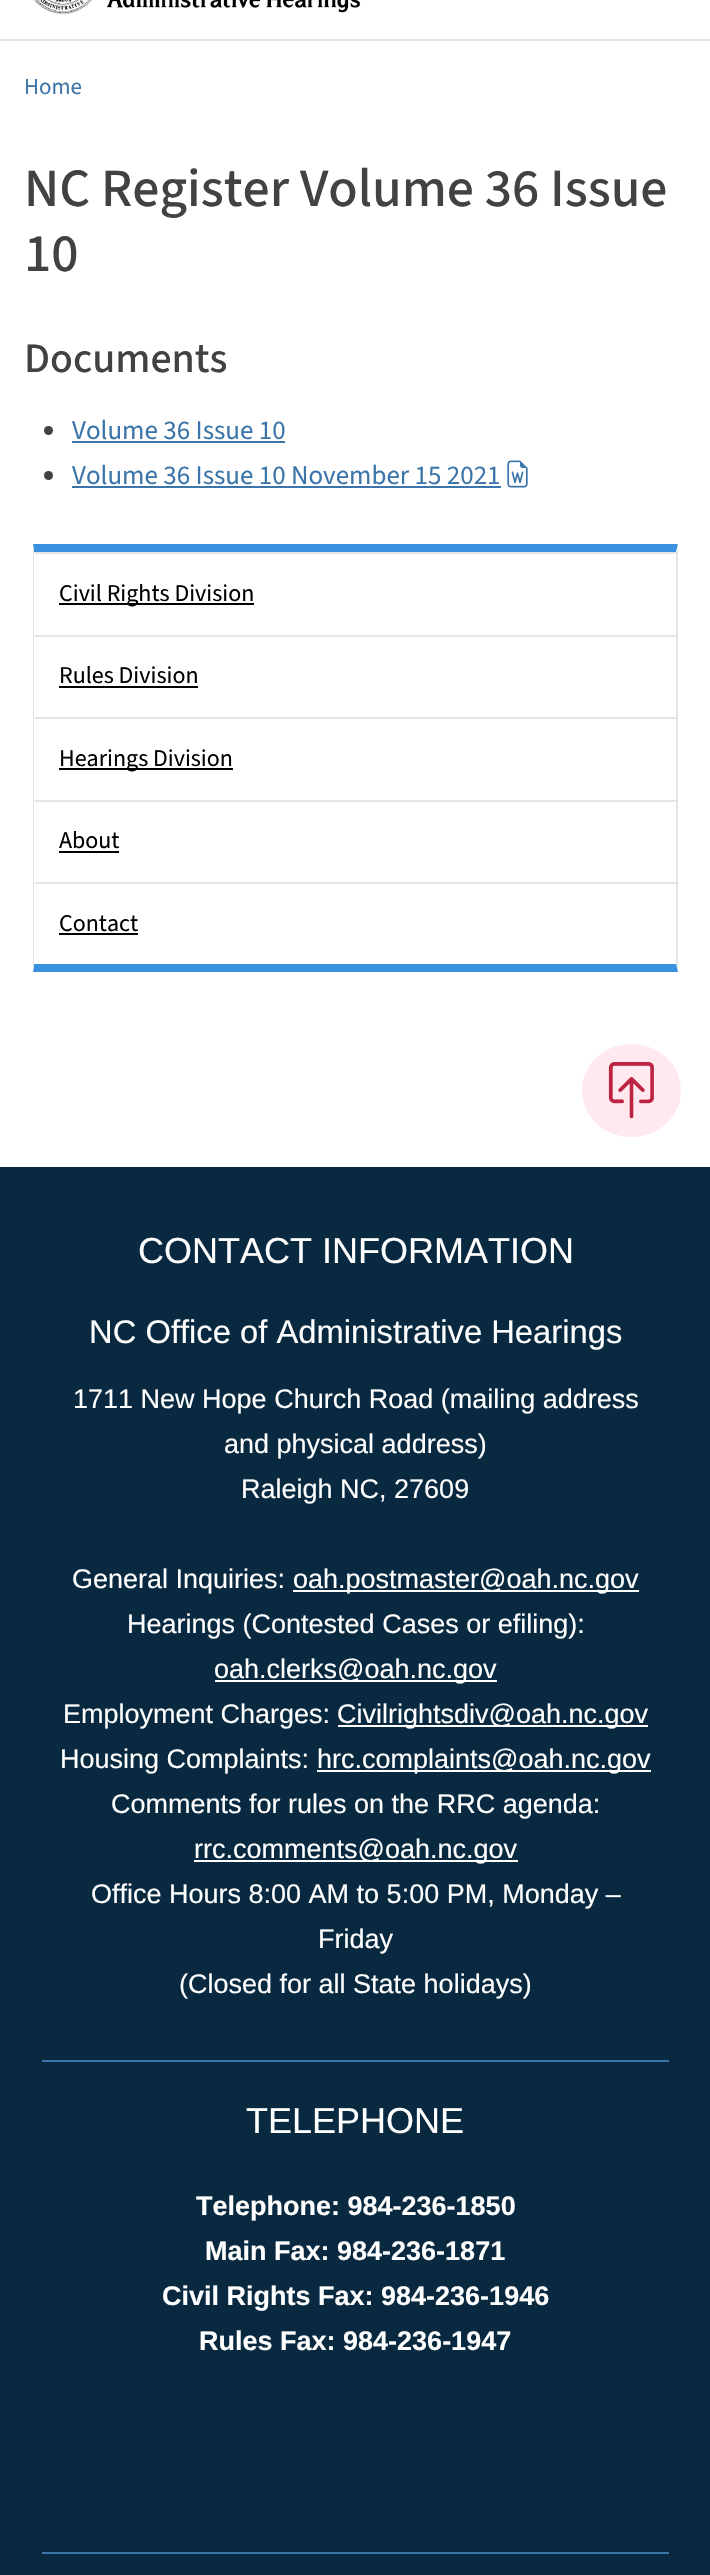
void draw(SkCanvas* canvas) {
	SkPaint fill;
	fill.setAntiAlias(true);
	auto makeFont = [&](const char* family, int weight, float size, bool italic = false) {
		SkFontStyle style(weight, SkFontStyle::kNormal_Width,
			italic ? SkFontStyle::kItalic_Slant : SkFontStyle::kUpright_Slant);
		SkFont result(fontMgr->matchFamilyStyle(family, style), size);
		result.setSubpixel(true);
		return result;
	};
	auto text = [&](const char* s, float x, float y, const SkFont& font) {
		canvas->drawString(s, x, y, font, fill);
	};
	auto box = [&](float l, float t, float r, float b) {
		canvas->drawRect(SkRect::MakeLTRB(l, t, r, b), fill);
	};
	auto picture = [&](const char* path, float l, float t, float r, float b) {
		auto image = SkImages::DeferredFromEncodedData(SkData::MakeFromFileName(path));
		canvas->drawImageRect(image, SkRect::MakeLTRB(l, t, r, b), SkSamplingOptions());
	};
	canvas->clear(0xFFFFFFFF);
	fill.setColor(0xFFE5E5E5);
	box(0, 39, 710, 41);
	picture("image0.png", 34, 0, 361, 14);
	fill.setColor(0xFF424242);
	canvas->drawCircle(48.5f, 430.5f, 4.5f, fill);
	fill.setColor(0xFF3B75A9);
	box(72, 441, 285, 443);
	fill.setColor(0xFF424242);
	canvas->drawCircle(48.5f, 475.5f, 4.5f, fill);
	fill.setColor(0xFF3B75A9);
	box(72, 486, 501, 488);
	picture("image1.png", 507, 460, 528, 488);
	fill.setColor(0xFF3892E1);
	canvas->drawPath(SkPathBuilder().moveTo(33, 544).lineTo(678, 544).lineTo(676, 552).lineTo(34, 552).close().detach(), fill);
	fill.setColor(0xFFE5E5E5);
	canvas->drawPath(SkPathBuilder().moveTo(678, 544).lineTo(678, 972).lineTo(676, 964).lineTo(676, 552).close().detach(), fill);
	fill.setColor(0xFF3892E1);
	canvas->drawPath(SkPathBuilder().moveTo(678, 972).lineTo(33, 972).lineTo(34, 964).lineTo(676, 964).close().detach(), fill);
	fill.setColor(0xFFE5E5E5);
	canvas->drawPath(SkPathBuilder().moveTo(33, 972).lineTo(33, 544).lineTo(34, 552).lineTo(34, 964).close().detach(), fill);
	box(35, 552, 677, 554);
	fill.setColor(0xFF000000);
	box(59, 603, 254, 605);
	fill.setColor(0xFFE5E5E5);
	box(35, 635, 677, 637);
	fill.setColor(0xFF000000);
	box(59, 686, 198, 688);
	fill.setColor(0xFFE5E5E5);
	box(35, 717, 677, 719);
	fill.setColor(0xFF000000);
	box(59, 768, 233, 770);
	fill.setColor(0xFFE5E5E5);
	box(35, 800, 677, 802);
	fill.setColor(0xFF000000);
	box(59, 851, 119, 853);
	fill.setColor(0xFFE5E5E5);
	box(35, 882, 677, 884);
	fill.setColor(0xFF000000);
	box(59, 933, 138, 935);
	fill.setColor(0xFFFFE9EE);
	canvas->drawOval(SkRect::MakeLTRB(582, 1044, 681, 1137), fill);
	picture("image2.png", 608, 1062, 654, 1119);
	fill.setColor(0xFF092940);
	box(0, 1167, 710, 2575);
	fill.setColor(0xFF3B75A9);
	box(42, 2060, 669, 2062);
	fill.setColor(0xFFFFFFFF);
	box(293, 1590, 639, 1592);
	box(215, 1680, 497, 1682);
	box(338, 1725, 648, 1727);
	box(317, 1770, 651, 1772);
	box(194, 1860, 518, 1862);
	fill.setColor(0xFF3B75A9);
	box(42, 2552, 669, 2554);
	auto font1 = makeFont("Source Sans 3", 400, 23);
	text("Home", 24, 94, font1);
	auto font2 = makeFont("Source Sans 3", 500, 54);
	fill.setColor(0xFF424242);
	text("NC Register Volume 36 Issue", 24, 206, font2);
	text("10", 24, 271, font2);
	auto font3 = makeFont("Source Sans 3", 500, 42);
	text("Documents", 24, 372, font3);
	auto font4 = makeFont("Source Sans 3", 400, 27);
	fill.setColor(0xFF3B75A9);
	text("Volume 36 Issue 10", 72, 439, font4);
	text("Volume 36 Issue 10 November 15 2021", 72, 484, font4);
	auto font5 = makeFont("Source Sans 3", 400, 24);
	fill.setColor(0xFF000000);
	text("Civil Rights Division", 59, 601, font5);
	text("Rules Division", 59, 683, font5);
	text("Hearings Division", 59, 766, font5);
	text("About", 59, 848, font5);
	text("Contact", 59, 931, font5);
	auto font6 = makeFont("Liberation Sans", 400, 36);
	fill.setColor(0xFFFFFFFF);
	text("CONTACT INFORMATION", 138, 1263, font6);
	auto font7 = makeFont("Liberation Sans", 400, 32.75f);
	text("NC Office of Administrative Hearings", 89, 1343, font7);
	auto font8 = makeFont("Liberation Sans", 400, 27);
	text("1711 New Hope Church Road (mailing address", 73, 1408, font8);
	text("and physical address)", 224, 1453, font8);
	text("Raleigh NC, 27609", 241, 1498, font8);
	text("General Inquiries:", 72, 1588, font8);
	text("oah.postmaster@oah.nc.gov", 293, 1588, font8);
	text("Hearings (Contested Cases or efiling):", 127, 1633, font8);
	text("oah.clerks@oah.nc.gov", 214, 1678, font8);
	text("Employment Charges:", 63, 1723, font8);
	text("Civilrightsdiv@oah.nc.gov", 337, 1723, font8);
	text("Housing Complaints:", 60, 1768, font8);
	text("hrc.complaints@oah.nc.gov", 317, 1768, font8);
	text("Comments for rules on the RRC agenda:", 111, 1813, font8);
	text("rrc.comments@oah.nc.gov", 194, 1858, font8);
	text("Office Hours 8:00 AM to 5:00 PM, Monday –", 91, 1903, font8);
	text("Friday", 318, 1948, font8);
	text("(Closed for all State holidays)", 179, 1993, font8);
	text("TELEPHONE", 246, 2133, font6);
	auto font9 = makeFont("Liberation Sans", 700, 27);
	text("Telephone: 984-236-1850", 196, 2215, font9);
	text("Main Fax: 984-236-1871", 205, 2260, font9);
	text("Civil Rights Fax: 984-236-1946", 162, 2305, font9);
	text("Rules Fax: 984-236-1947", 199, 2350, font9);
}
